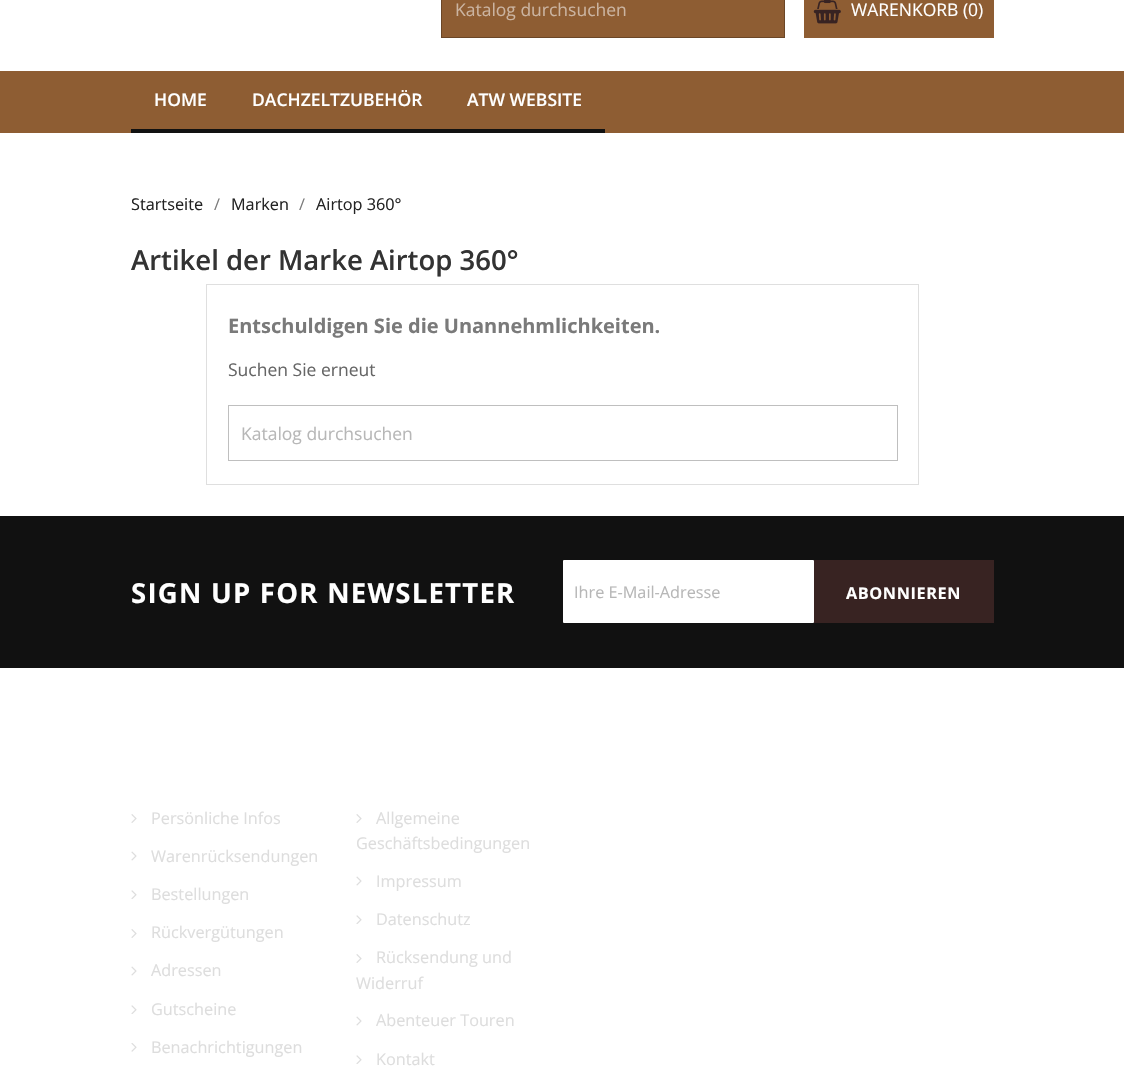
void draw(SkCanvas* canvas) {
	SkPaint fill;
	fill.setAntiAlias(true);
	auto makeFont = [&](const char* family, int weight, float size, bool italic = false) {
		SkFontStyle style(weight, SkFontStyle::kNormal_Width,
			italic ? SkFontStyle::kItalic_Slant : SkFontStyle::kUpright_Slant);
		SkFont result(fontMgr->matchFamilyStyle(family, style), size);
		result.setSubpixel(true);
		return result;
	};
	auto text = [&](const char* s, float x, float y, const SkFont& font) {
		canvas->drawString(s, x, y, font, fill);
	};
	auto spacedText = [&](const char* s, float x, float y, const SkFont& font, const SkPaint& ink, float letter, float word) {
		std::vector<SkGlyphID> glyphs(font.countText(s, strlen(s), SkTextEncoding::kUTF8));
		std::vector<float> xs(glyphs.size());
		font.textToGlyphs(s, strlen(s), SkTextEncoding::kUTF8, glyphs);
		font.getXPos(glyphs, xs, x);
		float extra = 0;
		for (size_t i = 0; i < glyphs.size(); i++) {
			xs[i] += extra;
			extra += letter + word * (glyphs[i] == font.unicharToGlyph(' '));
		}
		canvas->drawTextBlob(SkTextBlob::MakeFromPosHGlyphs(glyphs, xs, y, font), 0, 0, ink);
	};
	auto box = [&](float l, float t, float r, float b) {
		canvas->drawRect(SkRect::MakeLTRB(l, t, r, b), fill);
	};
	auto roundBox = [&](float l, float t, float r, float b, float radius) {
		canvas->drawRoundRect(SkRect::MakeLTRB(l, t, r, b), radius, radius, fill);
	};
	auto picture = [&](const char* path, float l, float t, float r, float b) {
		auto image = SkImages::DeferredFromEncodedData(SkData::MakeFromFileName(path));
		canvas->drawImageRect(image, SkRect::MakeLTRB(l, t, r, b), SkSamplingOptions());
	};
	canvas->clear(0xFFFFFFFF);
	fill.setColor(0xFF8E5D33);
	canvas->drawRect(SkRect::MakeLTRB(441.5f, -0.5f, 784.5f, 37.5f), fill);
	fill.setStyle(SkPaint::kStroke_Style);
	fill.setStrokeWidth(1);
	fill.setColor(0xFF6B4626);
	canvas->drawRect(SkRect::MakeLTRB(441.5f, -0.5f, 784.5f, 37.5f), fill);
	fill.setStyle(SkPaint::kFill_Style);
	fill.setColor(0xFF8E5D33);
	box(804, 0, 994, 38);
	picture("image0.png", 813, 0, 841, 24);
	box(0, 71, 1124, 133);
	fill.setColor(0xFF111111);
	box(131, 129, 605, 133);
	fill.setStyle(SkPaint::kStroke_Style);
	fill.setColor(0xFFDFDFDF);
	canvas->drawRect(SkRect::MakeLTRB(206.5f, 284.5f, 918.5f, 484.5f), fill);
	fill.setColor(0xFFBFBFBF);
	canvas->drawRect(SkRect::MakeLTRB(228.5f, 405.5f, 897.5f, 460.5f), fill);
	fill.setStyle(SkPaint::kFill_Style);
	fill.setColor(0xFF111111);
	box(0, 516, 1124, 668);
	fill.setColor(0xFFFFFFFF);
	roundBox(563, 560, 814, 623, 1);
	fill.setColor(0xFF382322);
	box(814, 560, 994, 623);
	picture("image1.png", 131, 814, 137, 823);
	picture("image2.png", 131, 851, 137, 861);
	picture("image3.png", 131, 890, 137, 899);
	picture("image1.png", 131, 929, 137, 938);
	picture("image2.png", 131, 966, 137, 976);
	picture("image3.png", 131, 1005, 137, 1014);
	picture("image4.png", 131, 1043, 137, 1052);
	picture("image1.png", 356, 814, 362, 823);
	picture("image2.png", 356, 876, 362, 886);
	picture("image3.png", 356, 915, 362, 924);
	picture("image1.png", 356, 954, 362, 963);
	picture("image2.png", 356, 1016, 362, 1026);
	picture("image3.png", 356, 1055, 362, 1064);
	auto font1 = makeFont("Open Sans", 400, 17.5f);
	fill.setColor(0xFFCBB4A1);
	text("Katalog durchsuchen", 455, 16, font1);
	fill.setColor(0xFFFFFFFF);
	text("WARENKORB (0)", 851, 16, font1);
	auto font2 = makeFont("Open Sans", 600, 17.5f);
	text("HOME", 154, 106, font2);
	text("DACHZELTZUBEHÖR", 252, 106, font2);
	text("ATW WEBSITE", 467, 106, font2);
	auto font3 = makeFont("Open Sans", 400, 16.25f);
	fill.setColor(0xFF232323);
	text("Startseite", 131, 210, font3);
	fill.setColor(0xFF7A7A7A);
	text("/", 214, 210, font3);
	fill.setColor(0xFF232323);
	text("Marken", 231, 210, font3);
	fill.setColor(0xFF7A7A7A);
	text("/", 299, 210, font3);
	fill.setColor(0xFF232323);
	text("Airtop 360°", 316, 210, font3);
	auto font4 = makeFont("Open Sans", 600, 27.5f);
	fill.setColor(0xFF333333);
	text("Artikel der Marke Airtop 360°", 131, 270, font4);
	auto font5 = makeFont("Open Sans", 700, 20);
	fill.setColor(0xFF7A7A7A);
	text("Entschuldigen Sie die Unannehmlichkeiten.", 228, 333, font5);
	fill.setColor(0xFF666666);
	text("Suchen Sie erneut", 228, 376, font1);
	fill.setColor(0xFFB7B7B7);
	text("Katalog durchsuchen", 241, 440, font1);
	auto font6 = makeFont("Open Sans", 700, 27.5f);
	fill.setColor(0xFFFFFFFF);
	spacedText("SIGN UP FOR NEWSLETTER", 131, 603, font6, fill, 1.25f, 0);
	fill.setColor(0xFFB7B7B7);
	text("Ihre E-Mail-Adresse", 574, 598, font3);
	auto font7 = makeFont("Open Sans", 700, 16.25f);
	fill.setColor(0xFFFFFFFF);
	spacedText("ABONNIEREN", 846, 599, font7, fill, 0.6f, 0);
	fill.setColor(0xFFDDDDDD);
	text("Persönliche Infos", 151, 824, font3);
	text("Warenrücksendungen", 151, 862, font3);
	text("Bestellungen", 151, 900, font3);
	text("Rückvergütungen", 151, 938, font3);
	text("Adressen", 151, 976, font3);
	text("Gutscheine", 151, 1015, font3);
	text("Benachrichtigungen", 151, 1053, font3);
	text("Allgemeine", 376, 824, font3);
	text("Geschäftsbedingungen", 356, 849, font3);
	text("Impressum", 376, 887, font3);
	text("Datenschutz", 376, 925, font3);
	text("Rücksendung und", 376, 963, font3);
	text("Widerruf", 356, 989, font3);
	text("Abenteuer Touren", 376, 1026, font3);
	text("Kontakt", 376, 1065, font3);
}
